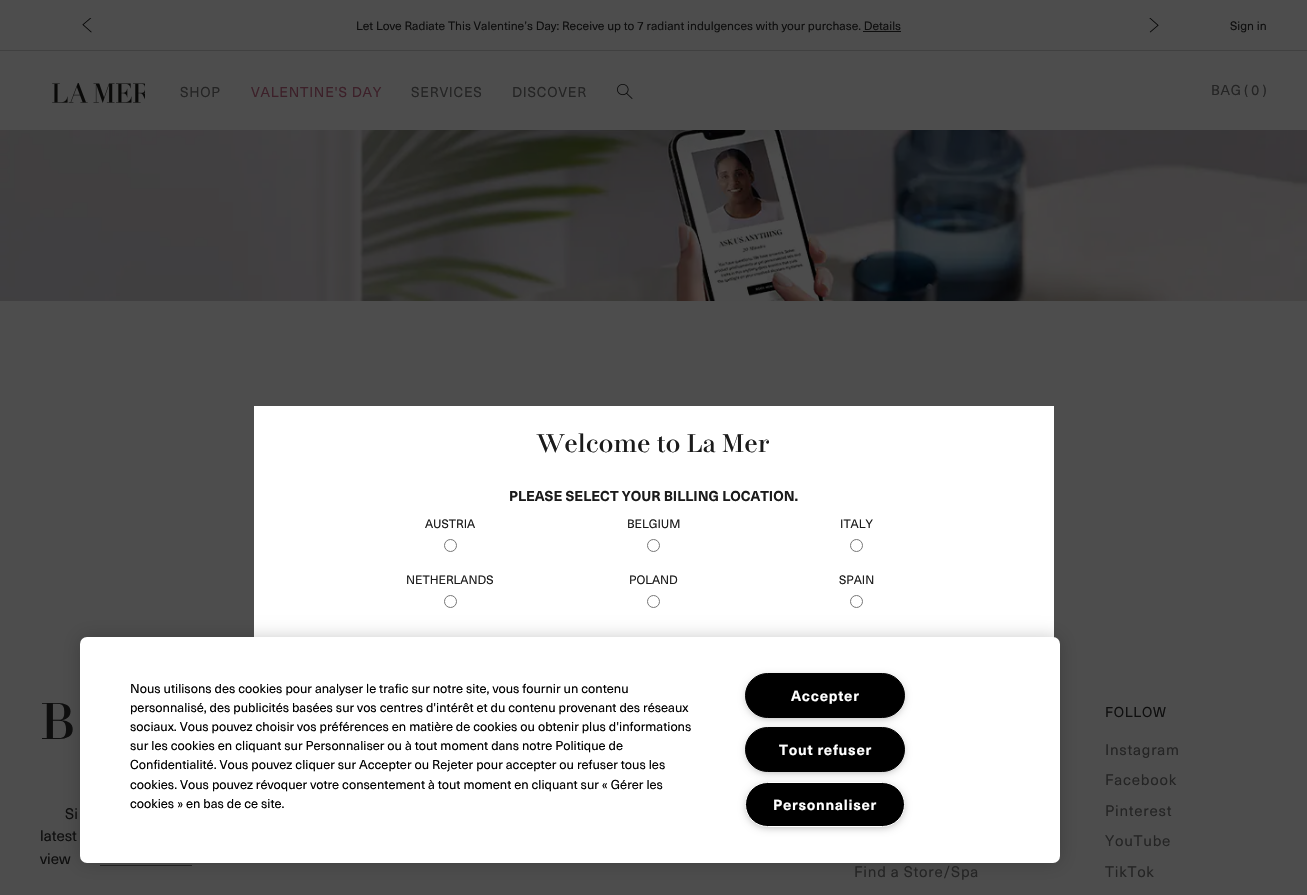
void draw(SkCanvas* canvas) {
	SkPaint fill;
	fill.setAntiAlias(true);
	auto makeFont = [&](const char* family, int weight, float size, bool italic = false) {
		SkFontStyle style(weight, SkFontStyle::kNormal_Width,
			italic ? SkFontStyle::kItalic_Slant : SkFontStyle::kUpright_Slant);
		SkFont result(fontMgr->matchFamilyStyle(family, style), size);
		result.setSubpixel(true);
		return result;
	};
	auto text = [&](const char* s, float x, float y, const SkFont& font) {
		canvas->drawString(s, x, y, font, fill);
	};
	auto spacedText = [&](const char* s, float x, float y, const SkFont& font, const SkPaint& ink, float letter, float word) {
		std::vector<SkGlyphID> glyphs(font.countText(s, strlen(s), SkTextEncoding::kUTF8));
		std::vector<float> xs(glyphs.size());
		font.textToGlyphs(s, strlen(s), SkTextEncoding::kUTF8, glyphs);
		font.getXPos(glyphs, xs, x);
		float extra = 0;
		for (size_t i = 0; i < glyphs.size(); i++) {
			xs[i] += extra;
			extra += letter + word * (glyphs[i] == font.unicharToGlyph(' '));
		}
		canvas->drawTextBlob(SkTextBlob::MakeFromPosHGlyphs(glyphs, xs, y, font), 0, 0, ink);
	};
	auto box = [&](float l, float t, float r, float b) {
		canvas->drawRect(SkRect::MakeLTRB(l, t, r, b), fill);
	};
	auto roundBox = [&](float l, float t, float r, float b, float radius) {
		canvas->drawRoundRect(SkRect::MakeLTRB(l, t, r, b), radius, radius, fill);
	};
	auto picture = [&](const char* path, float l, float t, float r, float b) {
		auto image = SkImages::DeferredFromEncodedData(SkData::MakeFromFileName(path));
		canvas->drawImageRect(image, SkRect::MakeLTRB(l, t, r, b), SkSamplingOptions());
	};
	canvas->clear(0xFF4D4D4D);
	fill.setColor(0xFF404040);
	box(0, 50, 1307, 51);
	picture("image0.png", 82, 18, 92, 33);
	fill.setColor(0xFF0E0E0E);
	box(863, 31, 901, 32);
	picture("image1.png", 1149, 18, 1159, 33);
	picture("image2.png", 52, 83, 145, 103);
	picture("image3.png", 617, 84, 633, 99);
	picture("image4.png", 0, 130, 1307, 301);
	fill.setColor(0xFFFFFFFF);
	box(254, 406, 1054, 638);
	fill.setStyle(SkPaint::kStroke_Style);
	fill.setStrokeWidth(1);
	fill.setColor(0xFF767676);
	canvas->drawCircle(450.5f, 545.5f, 6, fill);
	canvas->drawCircle(653.5f, 545.5f, 6, fill);
	canvas->drawCircle(856.5f, 545.5f, 6, fill);
	canvas->drawCircle(450.5f, 601.5f, 6, fill);
	canvas->drawCircle(653.5f, 601.5f, 6, fill);
	canvas->drawCircle(856.5f, 601.5f, 6, fill);
	fill.setStyle(SkPaint::kFill_Style);
	fill.setColor(0xFF262626);
	box(100, 865, 192, 866);
	fill.setColor(0x33000000);
	fill.setMaskFilter(SkMaskFilter::MakeBlur(kNormal_SkBlurStyle, 9));
	canvas->drawRoundRect(SkRect::MakeLTRB(80, 637, 1060, 863), 7, 7, fill);
	fill.setMaskFilter(nullptr);
	fill.setColor(0xFFFFFFFF);
	roundBox(80, 637, 1060, 863, 7);
	fill.setColor(0xFF999999);
	fill.setMaskFilter(SkMaskFilter::MakeBlur(kNormal_SkBlurStyle, 5));
	canvas->drawRoundRect(SkRect::MakeLTRB(748, 678, 902, 717), 19.5f, 19.5f, fill);
	fill.setMaskFilter(nullptr);
	fill.setColor(0xFF000000);
	canvas->drawRoundRect(SkRect::MakeLTRB(745.5f, 673.5f, 904.5f, 717.5f), 22, 22, fill);
	fill.setStyle(SkPaint::kStroke_Style);
	canvas->drawRoundRect(SkRect::MakeLTRB(745.5f, 673.5f, 904.5f, 717.5f), 22, 22, fill);
	fill.setStyle(SkPaint::kFill_Style);
	fill.setColor(0xFF999999);
	fill.setMaskFilter(SkMaskFilter::MakeBlur(kNormal_SkBlurStyle, 5));
	canvas->drawRoundRect(SkRect::MakeLTRB(748, 732, 902, 771), 19.5f, 19.5f, fill);
	fill.setMaskFilter(nullptr);
	fill.setColor(0xFF000000);
	canvas->drawRoundRect(SkRect::MakeLTRB(745.5f, 727.5f, 904.5f, 771.5f), 22, 22, fill);
	fill.setStyle(SkPaint::kStroke_Style);
	canvas->drawRoundRect(SkRect::MakeLTRB(745.5f, 727.5f, 904.5f, 771.5f), 22, 22, fill);
	fill.setStyle(SkPaint::kFill_Style);
	fill.setColor(0xFF999999);
	fill.setMaskFilter(SkMaskFilter::MakeBlur(kNormal_SkBlurStyle, 5));
	canvas->drawRoundRect(SkRect::MakeLTRB(748, 787, 902, 826), 19.5f, 19.5f, fill);
	fill.setMaskFilter(nullptr);
	fill.setColor(0xFF000000);
	canvas->drawRoundRect(SkRect::MakeLTRB(745.5f, 782.5f, 904.5f, 826.5f), 22, 22, fill);
	fill.setStyle(SkPaint::kStroke_Style);
	fill.setColor(0xFFFFFFFF);
	canvas->drawRoundRect(SkRect::MakeLTRB(745.5f, 782.5f, 904.5f, 826.5f), 22, 22, fill);
	auto font1 = makeFont("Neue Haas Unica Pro", 400, 12);
	fill.setStyle(SkPaint::kFill_Style);
	fill.setColor(0xFF0E0E0E);
	text("Let Love Radiate This Valentine’s Day: Receive up to 7 radiant indulgences with your purchase. Details", 356, 30, font1);
	text("Sign in", 1230, 30, font1);
	auto font2 = makeFont("Neue Haas Unica Pro", 400, 14);
	fill.setColor(0xFF242424);
	spacedText("SHOP", 180, 97, font2, fill, 0.75f, 0);
	fill.setColor(0xFF3C2029);
	spacedText("VALENTINE'S DAY", 251, 97, font2, fill, 0.75f, 0);
	fill.setColor(0xFF242424);
	spacedText("SERVICES", 411, 97, font2, fill, 0.75f, 0);
	spacedText("DISCOVER", 512, 97, font2, fill, 0.75f, 0);
	spacedText("BAG", 1211, 95, font2, fill, 0.75f, 0);
	text("( 0 )", 1244, 95, font2);
	auto font3 = makeFont("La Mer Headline", 900, 25);
	fill.setColor(0xFF1B1B1B);
	text("Welcome to La Mer", 537, 452, font3);
	auto font4 = makeFont("Neue Haas Unica Pro", 700, 14);
	text("PLEASE SELECT YOUR BILLING LOCATION.", 509, 501, font4);
	text("AUSTRIA", 425, 528, font1);
	text("BELGIUM", 627, 528, font1);
	text("ITALY", 840, 528, font1);
	text("NETHERLANDS", 406, 584, font1);
	text("POLAND", 629, 584, font1);
	text("SPAIN", 839, 584, font1);
	auto font5 = makeFont("Neue Haas Unica Pro", 400, 12.8f);
	fill.setColor(0xFF000000);
	text("Nous utilisons des cookies pour analyser le trafic sur notre site, vous fournir un contenu", 130, 693, font5);
	text("personnalisé, des publicités basées sur vos centres d'intérêt et du contenu provenant des réseaux", 130, 712, font5);
	text("sociaux. Vous pouvez choisir vos préférences en matière de cookies ou obtenir plus d'informations", 130, 731, font5);
	text("sur les cookies en cliquant sur Personnaliser ou à tout moment dans notre Politique de", 130, 750, font5);
	text("Confidentialité. Vous pouvez cliquer sur Accepter ou Rejeter pour accepter ou refuser tous les", 130, 769, font5);
	text("cookies. Vous pouvez révoquer votre consentement à tout moment en cliquant sur « Gérer les", 130, 789, font5);
	text("cookies » en bas de ce site.", 130, 808, font5);
	auto font6 = makeFont("Neue Haas Unica Pro", 700, 14.5f);
	fill.setColor(0xFFFFFFFF);
	spacedText("Accepter", 791, 701, font6, fill, 0.75f, 0);
	spacedText("Tout refuser", 779, 755, font6, fill, 0.75f, 0);
	spacedText("Personnaliser", 773, 810, font6, fill, 0.75f, 0);
	auto font7 = makeFont("La Mer Headline", 900, 51);
	fill.setColor(0xFF0E0E0E);
	spacedText("B", 40, 739, font7, fill, -2, 0);
	auto font8 = makeFont("Neue Haas Unica Pro", 400, 15);
	text("Si", 65, 819, font8);
	text("latest", 40, 841, font8);
	text("view", 40, 864, font8);
	fill.setColor(0xFF242424);
	spacedText("Find a Store/Spa", 854, 877, font8, fill, 0.75f, 0);
	fill.setColor(0xFF0E0E0E);
	spacedText("FOLLOW", 1105, 717, font2, fill, 0.75f, 0);
	fill.setColor(0xFF242424);
	spacedText("Instagram", 1105, 755, font8, fill, 0.75f, 0);
	spacedText("Facebook", 1105, 785, font8, fill, 0.75f, 0);
	spacedText("Pinterest", 1105, 816, font8, fill, 0.75f, 0);
	spacedText("YouTube", 1105, 846, font8, fill, 0.75f, 0);
	spacedText("TikTok", 1105, 877, font8, fill, 0.75f, 0);
}
